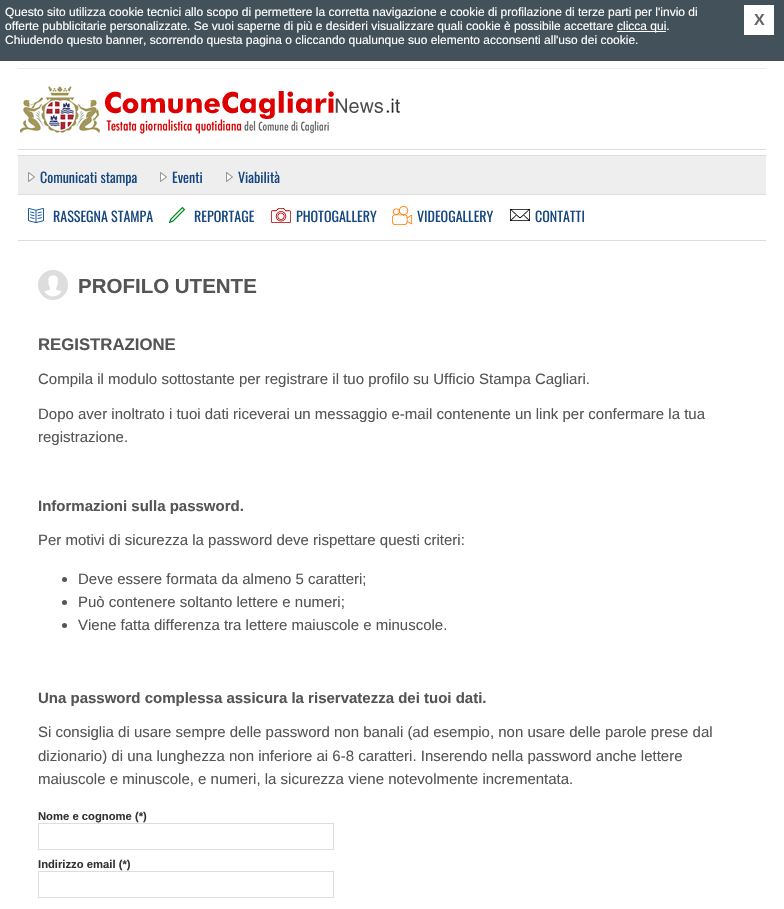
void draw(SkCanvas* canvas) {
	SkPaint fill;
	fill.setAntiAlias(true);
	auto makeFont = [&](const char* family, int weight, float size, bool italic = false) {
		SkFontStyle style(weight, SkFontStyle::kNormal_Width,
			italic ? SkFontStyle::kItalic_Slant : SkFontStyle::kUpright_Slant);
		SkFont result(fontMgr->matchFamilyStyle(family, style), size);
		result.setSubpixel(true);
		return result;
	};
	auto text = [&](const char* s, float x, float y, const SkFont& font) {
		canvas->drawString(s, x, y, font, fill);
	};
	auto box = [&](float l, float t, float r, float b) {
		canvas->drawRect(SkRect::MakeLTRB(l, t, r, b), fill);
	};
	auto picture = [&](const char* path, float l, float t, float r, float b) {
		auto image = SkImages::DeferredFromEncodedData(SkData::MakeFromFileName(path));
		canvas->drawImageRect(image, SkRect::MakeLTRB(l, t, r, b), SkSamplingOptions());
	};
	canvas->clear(0xFFFFFFFF);
	fill.setColor(0xFF43525A);
	box(0, 0, 784, 61);
	fill.setColor(0xFFFFFFFF);
	box(617, 31, 666, 32);
	box(744, 5, 774, 35);
	fill.setColor(0xFFEEEEEE);
	box(18, 68, 766, 69);
	picture("image0.png", 20, 86, 400, 134);
	fill.setColor(0xFFDDDDDD);
	box(18, 149, 766, 150);
	box(18, 240, 766, 241);
	fill.setColor(0xFFEEEEEE);
	box(18, 156, 766, 194);
	fill.setColor(0xFFDDDDDD);
	box(18, 155, 766, 156);
	box(18, 194, 766, 195);
	picture("image1.png", 28, 172, 35, 182);
	picture("image1.png", 160, 172, 167, 182);
	picture("image1.png", 226, 172, 233, 182);
	picture("image2.png", 28, 208, 44, 223);
	picture("image3.png", 169, 207, 185, 223);
	picture("image4.png", 271, 208, 291, 223);
	picture("image5.png", 392, 206, 412, 225);
	picture("image6.png", 510, 209, 530, 221);
	picture("image7.png", 38, 270, 68, 300);
	fill.setColor(0xFF555555);
	canvas->drawCircle(64.5f, 579.5f, 2.5f, fill);
	canvas->drawCircle(64.5f, 602.5f, 2.5f, fill);
	canvas->drawCircle(64.5f, 625.5f, 2.5f, fill);
	fill.setStyle(SkPaint::kStroke_Style);
	fill.setStrokeWidth(1);
	fill.setColor(0xFFDDDDDD);
	canvas->drawRect(SkRect::MakeLTRB(38.5f, 823.5f, 333.5f, 849.5f), fill);
	canvas->drawRect(SkRect::MakeLTRB(38.5f, 871.5f, 333.5f, 897.5f), fill);
	auto font1 = makeFont("Liberation Sans", 400, 12);
	fill.setStyle(SkPaint::kFill_Style);
	fill.setColor(0xFFFFFFFF);
	text("Questo sito utilizza cookie tecnici allo scopo di permettere la corretta navigazione e cookie di profilazione di terze parti per l'invio di", 5, 16, font1);
	text("offerte pubblicitarie personalizzate. Se vuoi saperne di più e desideri visualizzare quali cookie è possibile accettare", 5, 30, font1);
	text("clicca qui.", 617, 30, font1);
	text("Chiudendo questo banner, scorrendo questa pagina o cliccando qualunque suo elemento acconsenti all'uso dei cookie.", 5, 44, font1);
	auto font2 = makeFont("Liberation Sans", 700, 16);
	fill.setColor(0xFF666666);
	text("X", 754, 25, font2);
	auto font3 = makeFont("Oswald", 400, 14);
	fill.setColor(0xFF164781);
	text("Comunicati stampa", 40, 183, font3);
	text("Eventi", 172, 183, font3);
	text("Viabilità", 238, 183, font3);
	text("RASSEGNA STAMPA", 53, 222, font3);
	text("REPORTAGE", 194, 222, font3);
	text("PHOTOGALLERY", 296, 222, font3);
	text("VIDEOGALLERY", 417, 222, font3);
	text("CONTATTI", 535, 222, font3);
	auto font4 = makeFont("Liberation Sans", 700, 20.5f);
	fill.setColor(0xFF555555);
	text("PROFILO UTENTE", 78, 293, font4);
	auto font5 = makeFont("Liberation Sans", 700, 16.75f);
	text("REGISTRAZIONE", 38, 350, font5);
	auto font6 = makeFont("Liberation Sans", 400, 15);
	text("Compila il modulo sottostante per registrare il tuo profilo su Ufficio Stampa Cagliari.", 38, 384, font6);
	text("Dopo aver inoltrato i tuoi dati riceverai un messaggio e-mail contenente un link per confermare la tua", 38, 419, font6);
	text("registrazione.", 38, 442, font6);
	auto font7 = makeFont("Liberation Sans", 700, 15);
	text("Informazioni sulla password.", 38, 511, font7);
	text("Per motivi di sicurezza la password deve rispettare questi criteri:", 38, 545, font6);
	text("Deve essere formata da almeno 5 caratteri;", 78, 584, font6);
	text("Può contenere soltanto lettere e numeri;", 78, 607, font6);
	text("Viene fatta differenza tra lettere maiuscole e minuscole.", 78, 630, font6);
	text("Una password complessa assicura la riservatezza dei tuoi dati.", 38, 703, font7);
	text("Si consiglia di usare sempre delle password non banali (ad esempio, non usare delle parole prese dal", 38, 737, font6);
	text("dizionario) di una lunghezza non inferiore ai 6-8 caratteri. Inserendo nella password anche lettere", 38, 761, font6);
	text("maiuscole e minuscole, e numeri, la sicurezza viene notevolmente incrementata.", 38, 784, font6);
	auto font8 = makeFont("Liberation Sans", 700, 11.25f);
	fill.setColor(0xFF333333);
	text("Nome e cognome (*)", 38, 820, font8);
	text("Indirizzo email (*)", 38, 868, font8);
}
